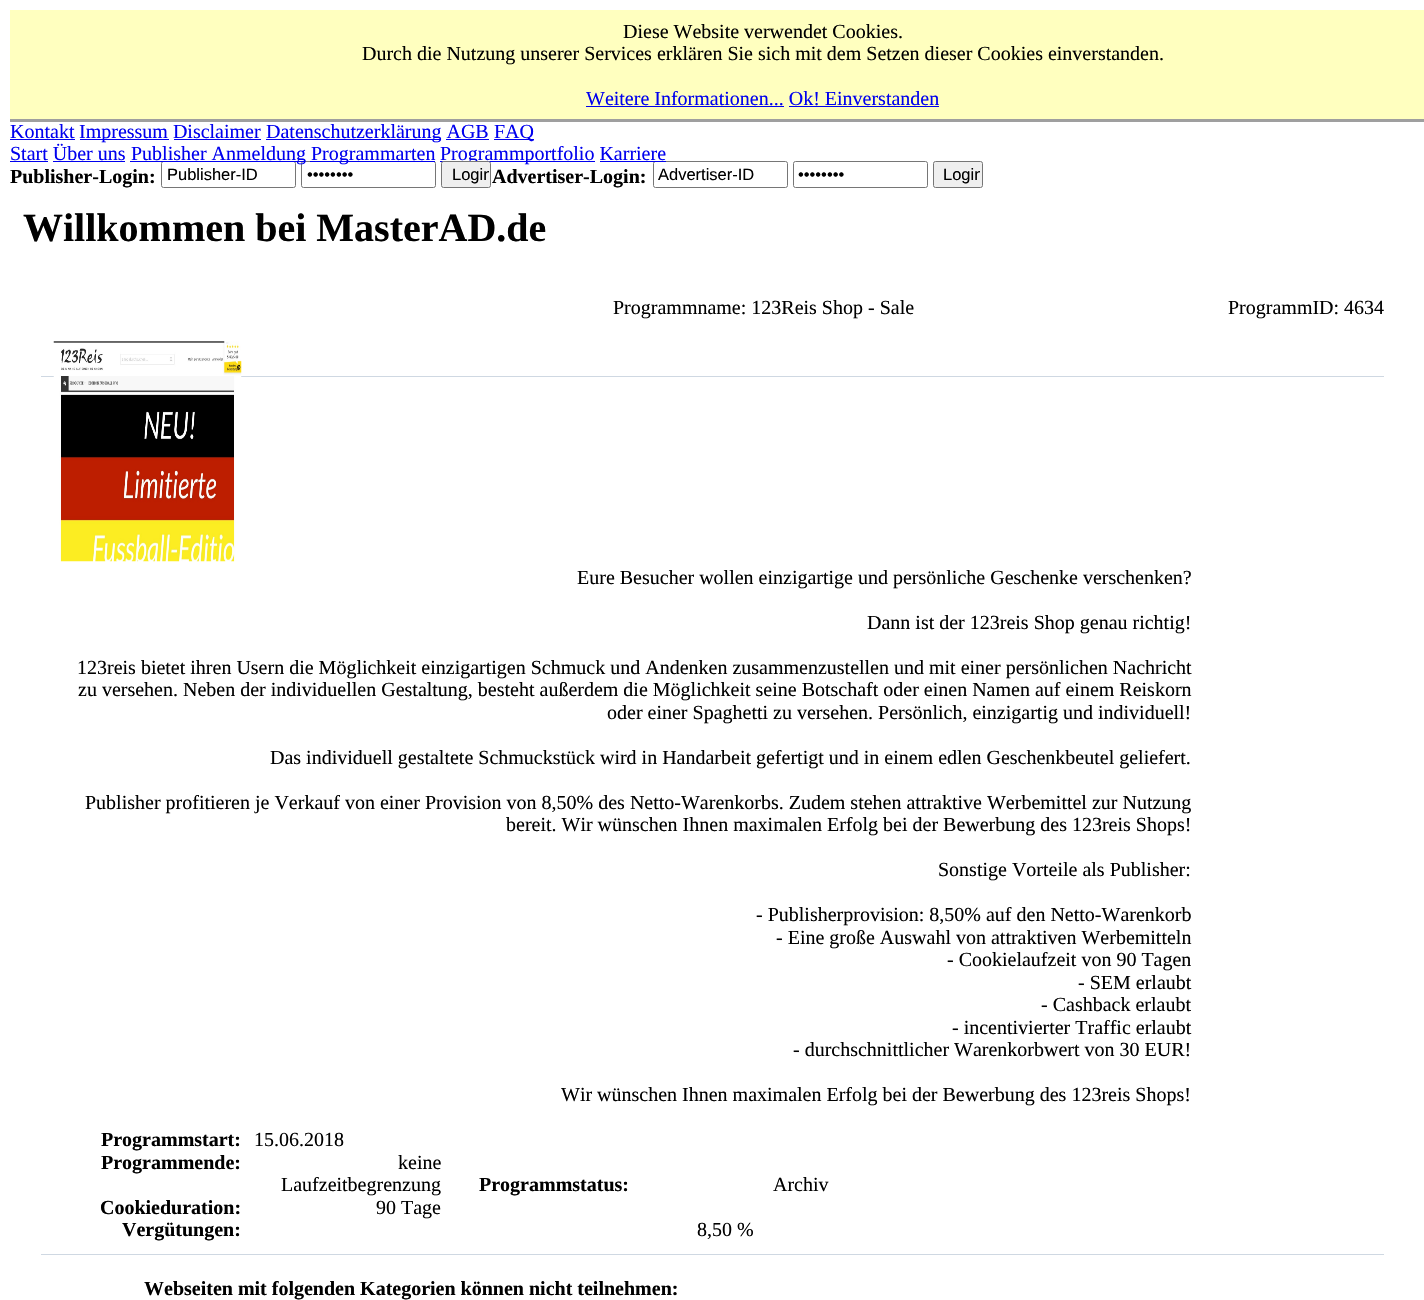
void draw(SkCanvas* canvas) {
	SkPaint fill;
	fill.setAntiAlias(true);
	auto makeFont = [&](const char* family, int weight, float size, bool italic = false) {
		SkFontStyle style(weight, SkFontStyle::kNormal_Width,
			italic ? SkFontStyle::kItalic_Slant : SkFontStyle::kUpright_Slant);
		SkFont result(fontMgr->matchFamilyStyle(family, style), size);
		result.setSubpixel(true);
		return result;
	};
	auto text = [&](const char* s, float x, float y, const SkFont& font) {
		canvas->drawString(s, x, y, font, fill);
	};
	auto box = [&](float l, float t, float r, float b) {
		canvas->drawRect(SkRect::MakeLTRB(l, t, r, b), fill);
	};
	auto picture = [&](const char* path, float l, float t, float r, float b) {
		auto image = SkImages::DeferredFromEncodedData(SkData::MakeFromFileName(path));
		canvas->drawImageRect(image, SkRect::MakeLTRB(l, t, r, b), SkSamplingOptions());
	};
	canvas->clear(0xFFFFFFFF);
	fill.setColor(0xFFFFFFBF);
	box(10, 10, 1424, 119);
	fill.setColor(0xFF9F9F9F);
	box(10, 119, 1424, 122);
	fill.setColor(0xFF0000EE);
	box(586, 106, 784, 107);
	box(789, 106, 939, 107);
	box(10, 139, 75, 140);
	box(80, 139, 169, 140);
	box(266, 139, 441, 140);
	box(494, 139, 534, 140);
	box(174, 139, 261, 140);
	box(446, 139, 489, 140);
	box(10, 161, 48, 162);
	fill.setStyle(SkPaint::kStroke_Style);
	fill.setStrokeWidth(1);
	fill.setColor(0xFF767676);
	canvas->drawRoundRect(SkRect::MakeLTRB(161.5f, 161.5f, 295.5f, 187.5f), 2, 2, fill);
	canvas->drawRoundRect(SkRect::MakeLTRB(301.5f, 161.5f, 435.5f, 187.5f), 2, 2, fill);
	fill.setStyle(SkPaint::kFill_Style);
	fill.setColor(0xFF0000EE);
	box(130, 161, 305, 162);
	box(310, 161, 435, 162);
	box(440, 161, 595, 162);
	box(53, 161, 125, 162);
	fill.setStyle(SkPaint::kStroke_Style);
	fill.setColor(0xFF767676);
	canvas->drawRoundRect(SkRect::MakeLTRB(653.5f, 161.5f, 787.5f, 187.5f), 2, 2, fill);
	fill.setStyle(SkPaint::kFill_Style);
	fill.setColor(0xFF0000EE);
	box(600, 161, 666, 162);
	fill.setStyle(SkPaint::kStroke_Style);
	fill.setColor(0xFF767676);
	canvas->drawRoundRect(SkRect::MakeLTRB(793.5f, 161.5f, 927.5f, 187.5f), 2, 2, fill);
	fill.setStyle(SkPaint::kFill_Style);
	fill.setColor(0xFFEFEFEF);
	canvas->drawRoundRect(SkRect::MakeLTRB(933.5f, 161.5f, 982.5f, 187.5f), 2, 2, fill);
	fill.setStyle(SkPaint::kStroke_Style);
	fill.setColor(0xFF767676);
	canvas->drawRoundRect(SkRect::MakeLTRB(933.5f, 161.5f, 982.5f, 187.5f), 2, 2, fill);
	fill.setStyle(SkPaint::kFill_Style);
	fill.setColor(0xFFCFD8E2);
	box(41, 376, 1384, 377);
	picture("image0.png", 53, 341, 242, 562);
	box(41, 1254, 1384, 1255);
	auto font1 = makeFont("Liberation Serif", 400, 20);
	fill.setColor(0xFF000000);
	text("Diese Website verwendet Cookies.", 623, 38, font1);
	text("Durch die Nutzung unserer Services erklären Sie sich mit dem Setzen dieser Cookies einverstanden.", 362, 60, font1);
	fill.setColor(0xFF0000EE);
	text("Weitere Informationen... Ok! Einverstanden", 586, 105, font1);
	text("Kontakt", 10, 138, font1);
	text("Impressum Disclaimer", 79, 138, font1);
	text("Datenschutzerklärung AGB", 266, 138, font1);
	text("FAQ", 494, 138, font1);
	text("Start Über uns", 10, 160, font1);
	text("Publisher Anmeldung", 131, 160, font1);
	text("Programmarten", 311, 160, font1);
	text("Programmportfolio Karriere", 440, 160, font1);
	auto font2 = makeFont("Liberation Serif", 700, 20);
	fill.setColor(0xFF000000);
	text("Publisher-Login:", 10, 183, font2);
	auto font3 = makeFont("Liberation Sans", 400, 16.5f);
	text("Publisher-ID", 167, 180, font3);
	text("••••••••", 307, 180, font3);
	fill.setColor(0xFFEFEFEF);
	canvas->drawRoundRect(SkRect::MakeLTRB(441.5f, 161.5f, 490.5f, 187.5f), 2, 2, fill);
	fill.setStyle(SkPaint::kStroke_Style);
	fill.setColor(0xFF767676);
	canvas->drawRoundRect(SkRect::MakeLTRB(441.5f, 161.5f, 490.5f, 187.5f), 2, 2, fill);
	canvas->save();
	canvas->clipRect(SkRect::MakeLTRB(444, 164, 489, 185));
	fill.setStyle(SkPaint::kFill_Style);
	fill.setColor(0xFF000000);
	text("Login", 452, 180, font3);
	canvas->restore();
	text("Advertiser-Login:", 492, 183, font2);
	text("Advertiser-ID", 658, 180, font3);
	text("••••••••", 798, 180, font3);
	canvas->save();
	canvas->clipRect(SkRect::MakeLTRB(935, 164, 980, 185));
	text("Login", 943, 180, font3);
	canvas->restore();
	auto font4 = makeFont("Liberation Serif", 700, 40);
	text("Willkommen bei MasterAD.de", 23, 241, font4);
	text("Programmname: 123Reis Shop - Sale", 613, 314, font1);
	text("ProgrammID: 4634", 1228, 314, font1);
	text("Eure Besucher wollen einzigartige und persönliche Geschenke verschenken?", 577, 584, font1);
	text("Dann ist der 123reis Shop genau richtig!", 867, 629, font1);
	text("123reis bietet ihren Usern die Möglichkeit einzigartigen Schmuck und Andenken zusammenzustellen und mit einer persönlichen Nachricht", 77, 674, font1);
	text("zu versehen. Neben der individuellen Gestaltung, besteht außerdem die Möglichkeit seine Botschaft oder einen Namen auf einem Reiskorn", 78, 696, font1);
	text("oder einer Spaghetti zu versehen. Persönlich, einzigartig und individuell!", 607, 719, font1);
	text("Das individuell gestaltete Schmuckstück wird in Handarbeit gefertigt und in einem edlen Geschenkbeutel geliefert.", 270, 764, font1);
	text("Publisher profitieren je Verkauf von einer Provision von 8,50% des Netto-Warenkorbs. Zudem stehen attraktive Werbemittel zur Nutzung", 85, 809, font1);
	text("bereit. Wir wünschen Ihnen maximalen Erfolg bei der Bewerbung des 123reis Shops!", 506, 831, font1);
	text("Sonstige Vorteile als Publisher:", 938, 876, font1);
	text("- Publisherprovision: 8,50% auf den Netto-Warenkorb", 756, 921, font1);
	text("- Eine große Auswahl von attraktiven Werbemitteln", 776, 944, font1);
	text("- Cookielaufzeit von 90 Tagen", 947, 966, font1);
	text("- SEM erlaubt", 1078, 989, font1);
	text("- Cashback erlaubt", 1041, 1011, font1);
	text("- incentivierter Traffic erlaubt", 952, 1034, font1);
	text("- durchschnittlicher Warenkorbwert von 30 EUR!", 793, 1056, font1);
	text("Wir wünschen Ihnen maximalen Erfolg bei der Bewerbung des 123reis Shops!", 561, 1101, font1);
	text("Programmstart:", 101, 1146, font2);
	text("15.06.2018", 254, 1146, font1);
	text("Programmende:", 101, 1169, font2);
	text("keine", 398, 1169, font1);
	text("Laufzeitbegrenzung", 281, 1191, font1);
	text("Programmstatus:", 479, 1191, font2);
	text("Archiv", 773, 1191, font1);
	text("Cookieduration:", 100, 1214, font2);
	text("90 Tage", 376, 1214, font1);
	text("Vergütungen:", 122, 1236, font2);
	text("8,50 %", 697, 1236, font1);
	text("Webseiten mit folgenden Kategorien können nicht teilnehmen:", 144, 1295, font2);
}
